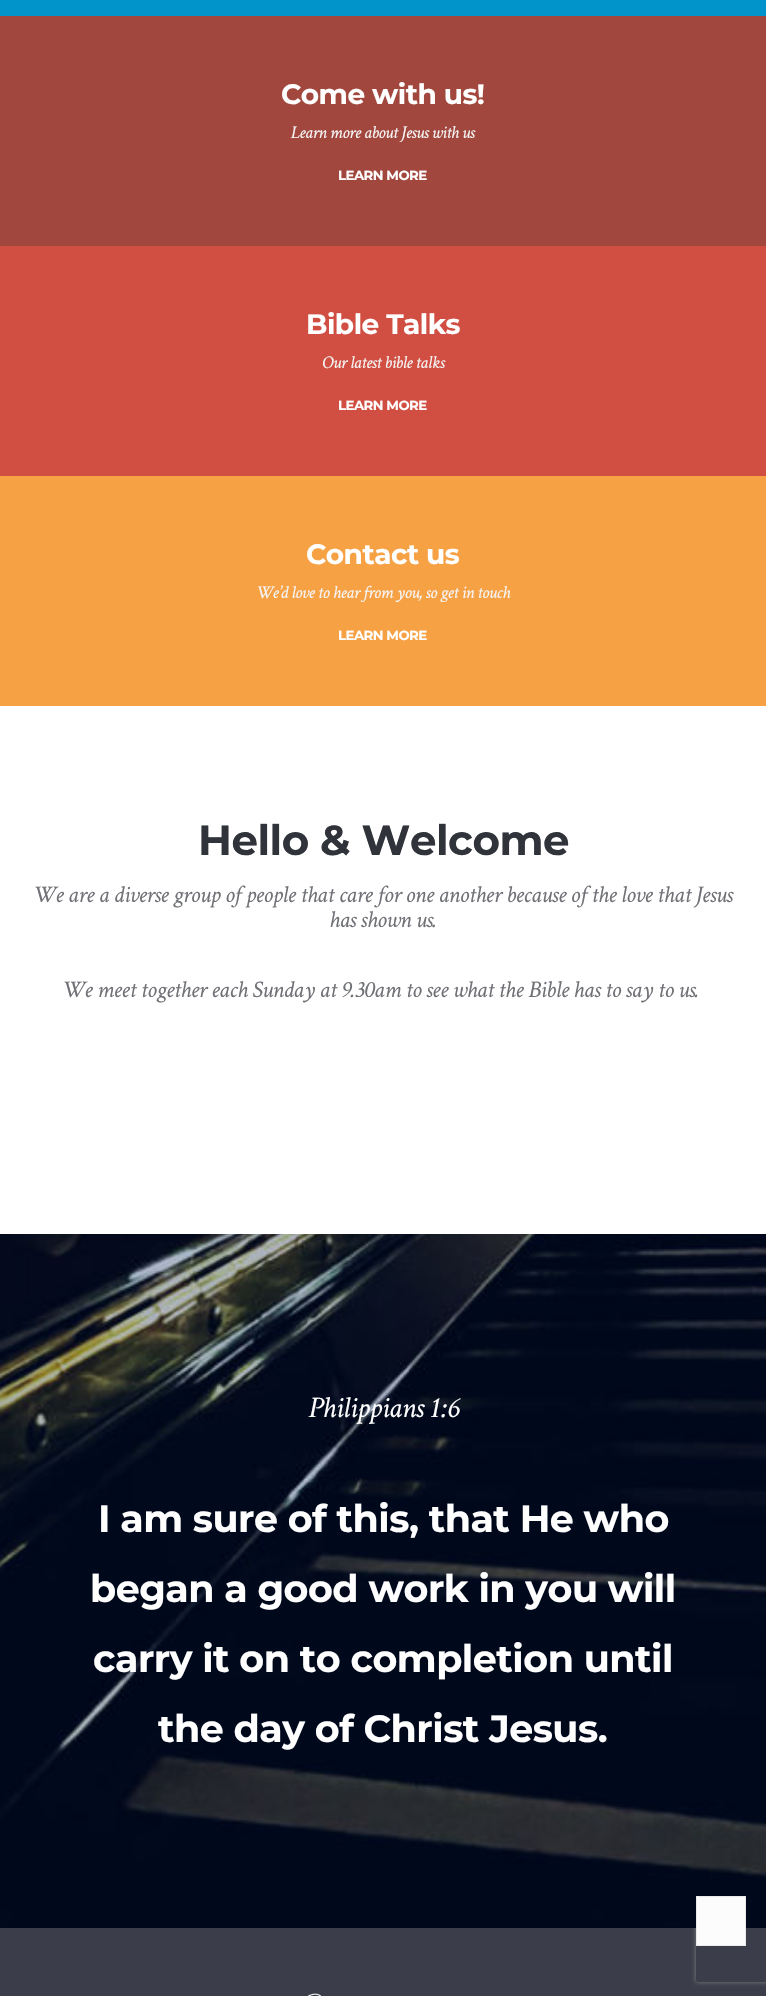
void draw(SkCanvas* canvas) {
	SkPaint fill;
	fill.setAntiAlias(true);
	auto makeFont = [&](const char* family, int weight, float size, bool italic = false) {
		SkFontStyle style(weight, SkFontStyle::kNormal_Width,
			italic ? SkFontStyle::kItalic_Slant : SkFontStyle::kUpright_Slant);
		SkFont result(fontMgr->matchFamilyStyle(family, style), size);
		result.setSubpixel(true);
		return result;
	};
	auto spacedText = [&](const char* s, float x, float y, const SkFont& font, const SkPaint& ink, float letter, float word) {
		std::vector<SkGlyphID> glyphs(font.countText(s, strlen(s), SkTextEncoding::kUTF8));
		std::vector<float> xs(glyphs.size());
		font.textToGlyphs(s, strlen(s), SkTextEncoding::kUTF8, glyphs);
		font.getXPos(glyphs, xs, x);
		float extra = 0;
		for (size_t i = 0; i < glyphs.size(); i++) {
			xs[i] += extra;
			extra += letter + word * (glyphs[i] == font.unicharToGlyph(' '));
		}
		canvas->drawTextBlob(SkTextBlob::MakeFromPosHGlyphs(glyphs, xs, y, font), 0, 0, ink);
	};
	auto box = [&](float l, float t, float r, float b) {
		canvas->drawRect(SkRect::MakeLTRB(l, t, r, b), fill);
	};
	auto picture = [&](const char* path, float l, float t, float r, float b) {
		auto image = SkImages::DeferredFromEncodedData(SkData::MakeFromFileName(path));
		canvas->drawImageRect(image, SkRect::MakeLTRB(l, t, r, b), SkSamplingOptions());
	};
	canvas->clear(0xFF3B3D4A);
	fill.setColor(0xFFFFFFFF);
	box(0, 706, 766, 1234);
	fill.setColor(0xFF0194CA);
	box(0, 0, 766, 16);
	fill.setColor(0xFFA2473E);
	box(0, 16, 766, 246);
	fill.setColor(0xFFD14F42);
	box(0, 246, 766, 476);
	fill.setColor(0xFFF7A145);
	box(0, 476, 766, 706);
	canvas->save();
	canvas->clipPath(SkPathBuilder(SkPathFillType::kEvenOdd).moveTo(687, 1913).lineTo(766, 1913).lineTo(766, 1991).lineTo(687, 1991).close().moveTo(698, 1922).lineTo(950, 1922).cubicTo(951, 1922, 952, 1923, 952, 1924).lineTo(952, 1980).cubicTo(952, 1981, 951, 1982, 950, 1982).lineTo(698, 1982).cubicTo(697, 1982, 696, 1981, 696, 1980).lineTo(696, 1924).cubicTo(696, 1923, 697, 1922, 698, 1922).close().detach(), true);
	fill.setColor(0xFF808080);
	fill.setMaskFilter(SkMaskFilter::MakeBlur(kNormal_SkBlurStyle, 2.5f));
	canvas->drawRoundRect(SkRect::MakeLTRB(696, 1922, 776, 1982), 2, 2, fill);
	fill.setMaskFilter(nullptr);
	canvas->restore();
	picture("image0.png", 0, 1234, 766, 1928);
	fill.setColor(0xFFFCFCFC);
	canvas->drawRect(SkRect::MakeLTRB(696.5f, 1896.5f, 745.5f, 1945.5f), fill);
	fill.setStyle(SkPaint::kStroke_Style);
	fill.setStrokeWidth(1);
	fill.setColor(0xFFEAEAEA);
	canvas->drawRect(SkRect::MakeLTRB(696.5f, 1896.5f, 745.5f, 1945.5f), fill);
	picture("image1.png", 307, 1993, 322, 1996);
	auto font1 = makeFont("Montserrat", 100, 28);
	fill.setStyle(SkPaint::kFill_Style);
	fill.setColor(0xFFFFFFFF);
	spacedText("Come with us!", 281, 104, font1, fill, -0.5f, 0);
	auto font2 = makeFont("Crimson Text", 400, 18, true);
	fill.setColor(0xFFF5F5F5);
	spacedText("Learn more about Jesus with us", 291, 138, font2, fill, -0.5f, 0);
	auto font3 = makeFont("Montserrat", 100, 13.25f);
	fill.setColor(0xFFFFFFFF);
	spacedText("LEARN MORE", 338, 180, font3, fill, -0.5f, 0);
	spacedText("Bible Talks", 306, 334, font1, fill, -0.5f, 0);
	fill.setColor(0xFFF5F5F5);
	spacedText("Our latest bible talks", 322, 368, font2, fill, -0.5f, 0);
	fill.setColor(0xFFFFFFFF);
	spacedText("LEARN MORE", 338, 410, font3, fill, -0.5f, 0);
	spacedText("Contact us", 306, 564, font1, fill, -0.5f, 0);
	fill.setColor(0xFFF5F5F5);
	spacedText("We’d love to hear from you, so get in touch", 256, 598, font2, fill, -0.5f, 0);
	fill.setColor(0xFFFFFFFF);
	spacedText("LEARN MORE", 338, 640, font3, fill, -0.5f, 0);
	auto font4 = makeFont("Montserrat", 100, 42);
	fill.setColor(0xFF31333B);
	spacedText("Hello & Welcome", 198, 855, font4, fill, -0.5f, 0);
	auto font5 = makeFont("Crimson Text", 400, 24, true);
	fill.setColor(0xFF707176);
	spacedText("We are a diverse group of people that care for one another because of the love that Jesus", 33, 902, font5, fill, -0.5f, 0);
	spacedText("has shown us.", 329, 927, font5, fill, -0.5f, 0);
	spacedText("We meet together each Sunday at 9.30am to see what the Bible has to say to us.", 62, 997, font5, fill, -0.5f, 0);
	auto font6 = makeFont("Crimson Text", 400, 30, true);
	fill.setColor(0xFFFFFFFF);
	spacedText("Philippians 1:6", 308, 1417, font6, fill, -0.5f, 0);
	auto font7 = makeFont("Montserrat", 100, 38);
	spacedText("I am sure of this, that He who", 98, 1532, font7, fill, -0.5f, 0);
	spacedText("began a good work in you will", 90, 1602, font7, fill, -0.5f, 0);
	spacedText("carry it on to completion until", 93, 1672, font7, fill, -0.5f, 0);
	spacedText("the day of Christ Jesus.", 158, 1742, font7, fill, -0.5f, 0);
}
